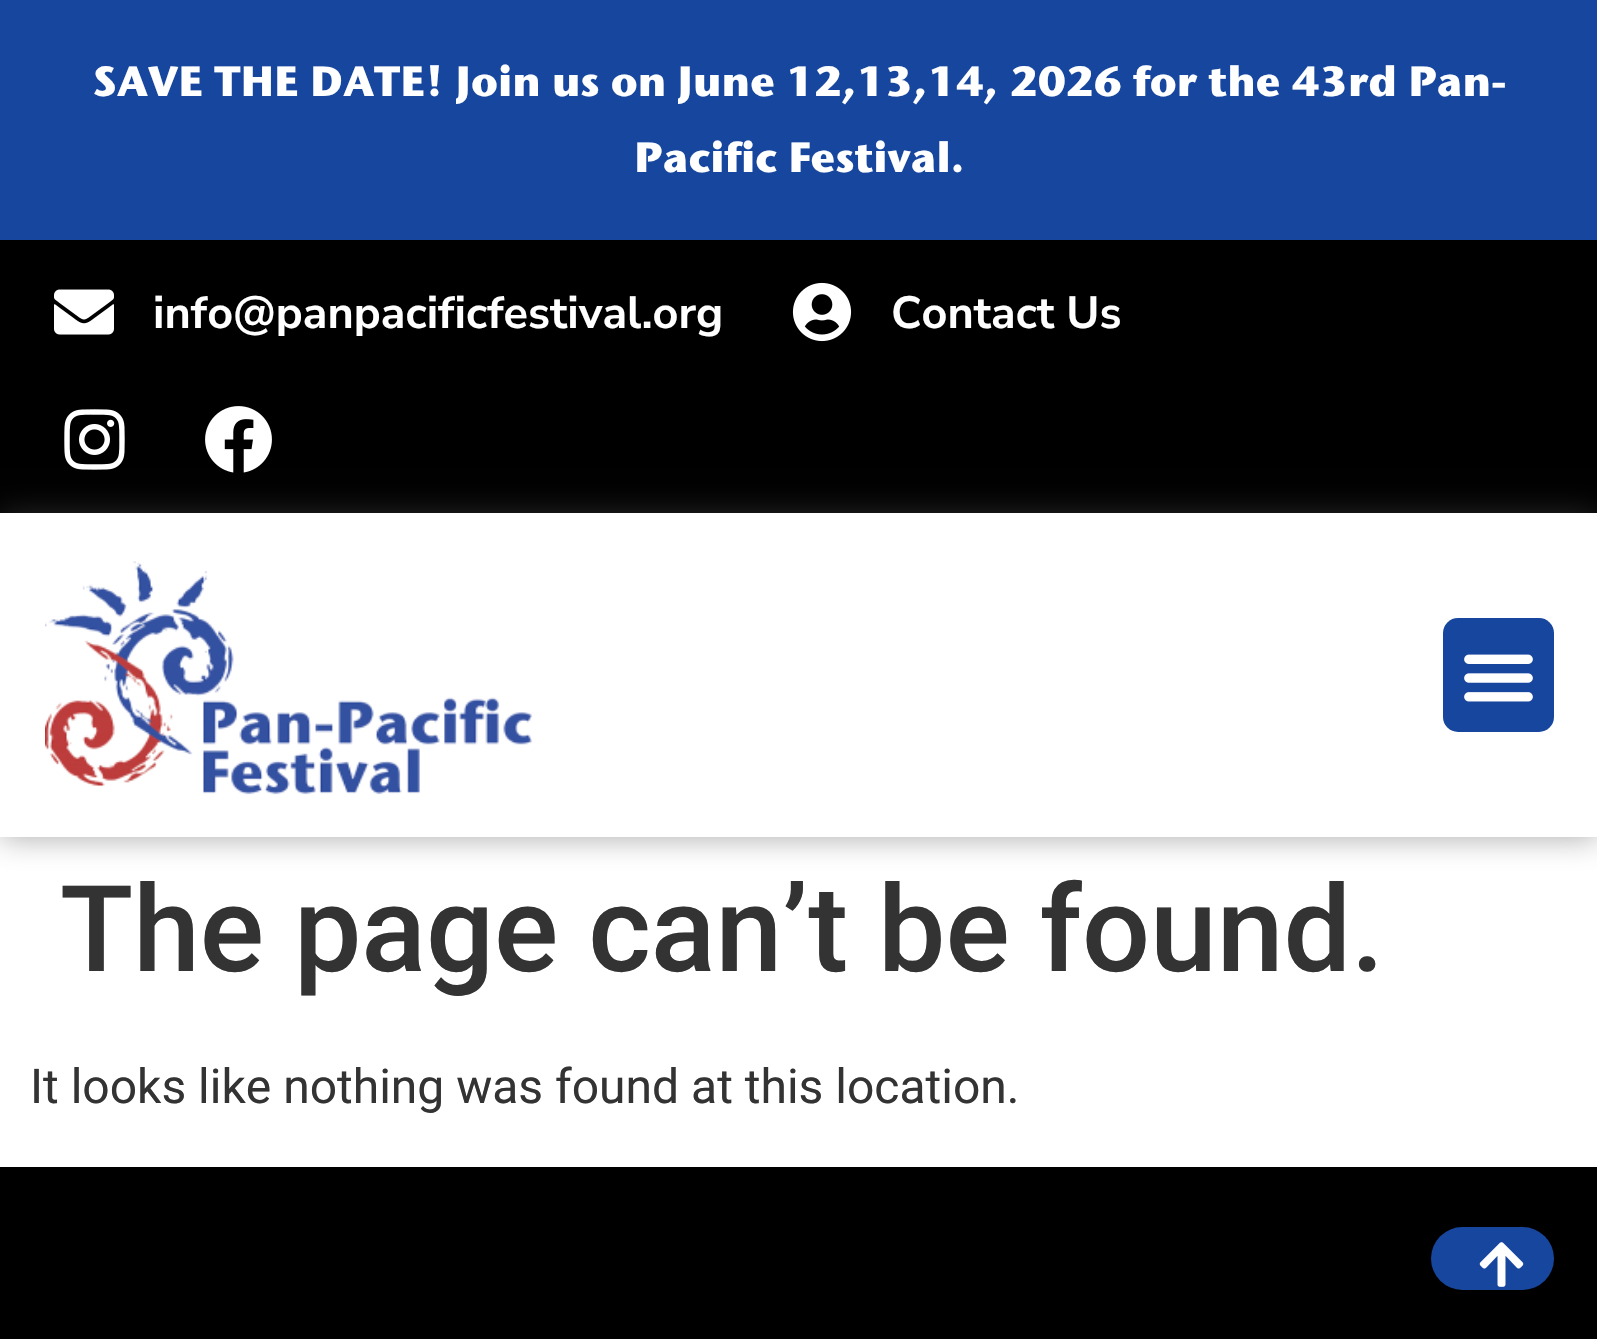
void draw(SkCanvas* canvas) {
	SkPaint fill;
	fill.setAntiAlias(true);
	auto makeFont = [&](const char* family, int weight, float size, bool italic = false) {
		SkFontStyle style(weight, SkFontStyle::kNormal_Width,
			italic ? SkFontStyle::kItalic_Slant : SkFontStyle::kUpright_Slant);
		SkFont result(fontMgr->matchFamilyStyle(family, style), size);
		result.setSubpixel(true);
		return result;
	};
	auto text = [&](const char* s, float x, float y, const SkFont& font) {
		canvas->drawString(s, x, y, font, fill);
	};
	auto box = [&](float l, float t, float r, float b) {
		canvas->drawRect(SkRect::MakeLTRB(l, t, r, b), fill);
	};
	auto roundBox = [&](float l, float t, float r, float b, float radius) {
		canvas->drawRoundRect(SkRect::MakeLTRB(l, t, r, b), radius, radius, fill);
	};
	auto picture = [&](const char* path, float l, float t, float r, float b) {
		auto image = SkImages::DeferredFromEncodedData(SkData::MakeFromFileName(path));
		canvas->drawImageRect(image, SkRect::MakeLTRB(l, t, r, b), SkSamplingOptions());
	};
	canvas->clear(0xFFFFFFFF);
	fill.setColor(0xFF17469E);
	box(0, 0, 1597, 240);
	fill.setColor(0xFF000000);
	box(0, 240, 1597, 513);
	picture("image0.png", 54, 289, 114, 335);
	picture("image1.png", 792, 282, 852, 342);
	picture("image2.png", 64, 409, 125, 470);
	picture("image3.png", 205, 406, 272, 473);
	canvas->save();
	canvas->clipPath(SkPathBuilder(SkPathFillType::kEvenOdd).moveTo(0, 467).lineTo(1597, 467).lineTo(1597, 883).lineTo(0, 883).close().moveTo(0, 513).lineTo(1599, 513).lineTo(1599, 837).lineTo(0, 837).close().detach(), true);
	fill.setColor(0x804D4D4D);
	fill.setMaskFilter(SkMaskFilter::MakeBlur(kNormal_SkBlurStyle, 15));
	canvas->drawRect(SkRect::MakeLTRB(0, 513, 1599, 837), fill);
	fill.setMaskFilter(nullptr);
	canvas->restore();
	picture("image4.png", 45, 561, 533, 795);
	fill.setColor(0xFF17469E);
	roundBox(1443, 618, 1554, 732, 15);
	picture("image5.png", 1464, 654, 1533, 702);
	fill.setColor(0xFF000000);
	box(0, 1167, 1597, 1339);
	fill.setColor(0xFF17469E);
	roundBox(1431, 1227, 1554, 1290, 31.5f);
	picture("image6.png", 1479, 1242, 1524, 1287);
	auto font1 = makeFont("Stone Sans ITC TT", 700, 42);
	fill.setColor(0xFFFFFFFF);
	text("SAVE THE DATE! Join us on June 12,13,14, 2026 for the 43rd Pan-", 93, 96, font1);
	text("Pacific Festival.", 634, 172, font1);
	auto font2 = makeFont("Nunito Sans", 700, 45);
	text("info@panpacificfestival.org", 153, 328, font2);
	text("Contact Us", 891, 328, font2);
	auto font3 = makeFont("Roboto", 500, 120);
	fill.setColor(0xFF333333);
	text("The page can’t be found.", 60, 971, font3);
	auto font4 = makeFont("Roboto", 400, 48);
	text("It looks like nothing was found at this location.", 30, 1103, font4);
}
